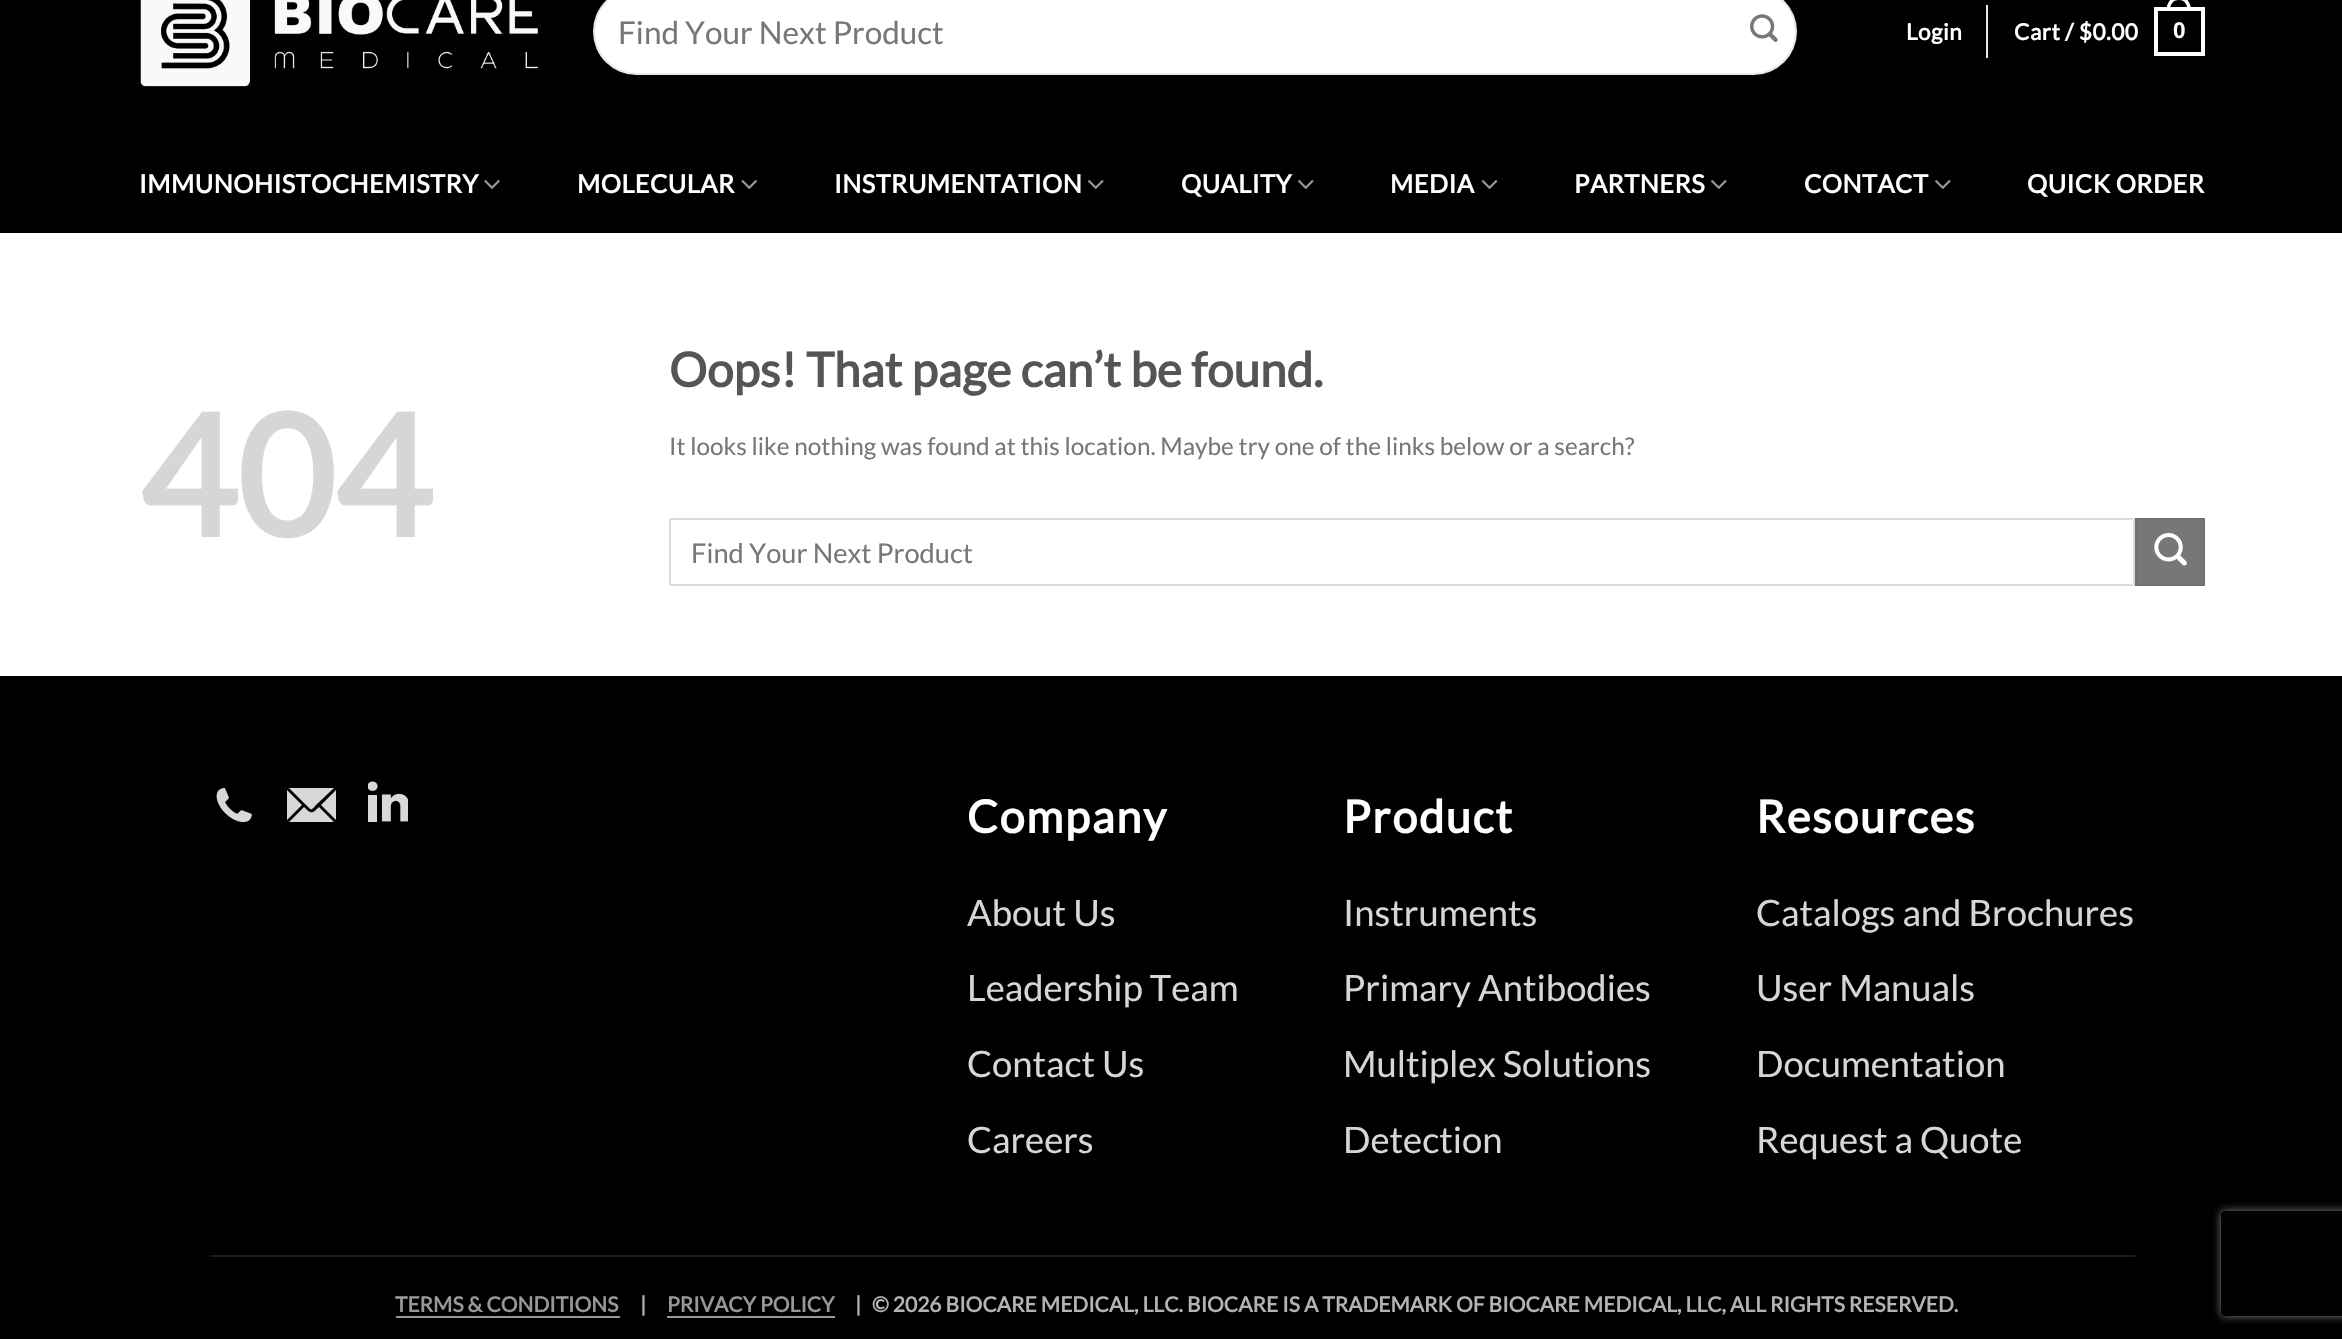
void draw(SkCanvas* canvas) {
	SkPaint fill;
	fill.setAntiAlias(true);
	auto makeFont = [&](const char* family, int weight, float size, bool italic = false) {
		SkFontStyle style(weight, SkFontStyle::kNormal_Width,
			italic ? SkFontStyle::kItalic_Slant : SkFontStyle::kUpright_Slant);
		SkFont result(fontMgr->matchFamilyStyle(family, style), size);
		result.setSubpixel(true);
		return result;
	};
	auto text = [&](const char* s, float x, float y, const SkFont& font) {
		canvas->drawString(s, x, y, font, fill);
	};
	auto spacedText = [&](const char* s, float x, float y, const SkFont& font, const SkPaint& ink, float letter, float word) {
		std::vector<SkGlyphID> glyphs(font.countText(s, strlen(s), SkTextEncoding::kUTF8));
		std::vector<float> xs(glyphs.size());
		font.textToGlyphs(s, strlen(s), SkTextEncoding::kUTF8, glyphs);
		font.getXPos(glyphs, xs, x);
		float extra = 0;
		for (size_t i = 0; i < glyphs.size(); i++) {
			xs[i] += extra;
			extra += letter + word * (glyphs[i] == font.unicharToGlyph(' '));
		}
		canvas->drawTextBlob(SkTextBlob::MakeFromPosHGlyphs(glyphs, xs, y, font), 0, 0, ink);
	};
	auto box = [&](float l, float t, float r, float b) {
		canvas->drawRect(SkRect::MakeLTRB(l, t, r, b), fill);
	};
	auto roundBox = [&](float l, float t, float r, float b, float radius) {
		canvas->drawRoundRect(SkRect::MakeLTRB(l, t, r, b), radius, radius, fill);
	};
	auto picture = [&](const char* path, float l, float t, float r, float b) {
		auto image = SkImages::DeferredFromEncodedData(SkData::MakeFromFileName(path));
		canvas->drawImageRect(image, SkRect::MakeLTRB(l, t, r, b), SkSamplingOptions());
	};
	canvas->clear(0xFF000000);
	fill.setColor(0xFFFFFFFF);
	box(0, 233, 2342, 676);
	picture("image0.png", 140, 0, 538, 87);
	roundBox(593, -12, 1797, 75, 43.5f);
	fill.setStyle(SkPaint::kStroke_Style);
	fill.setStrokeWidth(2);
	fill.setColor(0x17000000);
	canvas->drawRoundRect(SkRect::MakeLTRB(594, -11, 1796, 74), 42.5f, 42.5f, fill);
	picture("image1.png", 1750, 14, 1778, 42);
	fill.setStyle(SkPaint::kFill_Style);
	fill.setColor(0xFFE6E6E6);
	box(1986, 5, 1988, 58);
	fill.setStyle(SkPaint::kStroke_Style);
	fill.setStrokeWidth(4);
	fill.setColor(0xFFFFFFFF);
	canvas->drawRect(SkRect::MakeLTRB(2156, 9, 2203, 54), fill);
	fill.setStyle(SkPaint::kFill_Style);
	canvas->drawPath(SkPathBuilder(SkPathFillType::kEvenOdd).moveTo(2179, -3.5f).cubicTo(2187, -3.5f, 2191, 3, 2191, 10.5f).lineTo(2166.5f, 10.5f).cubicTo(2166.5f, 3, 2170.5f, -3.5f, 2179, -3.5f).close().moveTo(2179, 0).cubicTo(2185, 0, 2187.5f, 5, 2187.5f, 10.5f).lineTo(2170, 10.5f).cubicTo(2170, 5, 2172.5f, 0, 2179, 0).close().detach(), fill);
	picture("image2.png", 484, 180, 500, 189);
	picture("image3.png", 741, 180, 757, 189);
	picture("image4.png", 1088, 180, 1104, 189);
	picture("image4.png", 1298, 180, 1314, 189);
	picture("image5.png", 1481, 180, 1498, 189);
	picture("image4.png", 1711, 180, 1727, 189);
	picture("image4.png", 1935, 180, 1951, 189);
	fill.setStyle(SkPaint::kStroke_Style);
	fill.setStrokeWidth(2);
	fill.setColor(0xFFDDDDDD);
	canvas->drawRect(SkRect::MakeLTRB(670, 519, 2134, 585), fill);
	fill.setStyle(SkPaint::kFill_Style);
	fill.setColor(0xFF777777);
	canvas->drawRect(SkRect::MakeLTRB(2136, 519, 2204, 585), fill);
	fill.setStyle(SkPaint::kStroke_Style);
	fill.setColor(0xFF717171);
	canvas->drawRect(SkRect::MakeLTRB(2136, 519, 2204, 585), fill);
	picture("image6.png", 2154, 533, 2187, 566);
	picture("image7.png", 216, 788, 252, 823);
	fill.setStyle(SkPaint::kFill_Style);
	fill.setColor(0xFFD8D8D8);
	canvas->drawPath(SkPathBuilder().moveTo(336, 820).lineTo(321, 805).lineTo(336, 790).close().moveTo(289, 822).lineTo(304, 807).cubicTo(311, 814, 312, 814, 319, 807).lineTo(334, 822).close().moveTo(287, 790).lineTo(302, 805).lineTo(287, 820).close().moveTo(334, 788).lineTo(316, 805).cubicTo(310, 812, 312, 810, 304, 803).lineTo(289, 788).close().detach(), fill);
	picture("image8.png", 368, 781, 408, 822);
	fill.setColor(0xFF1B1B1B);
	box(210, 1255, 2135, 1257);
	fill.setColor(0xFF989898);
	box(396, 1316, 620, 1318);
	box(667, 1316, 835, 1318);
	canvas->save();
	canvas->clipPath(SkPathBuilder(SkPathFillType::kEvenOdd).moveTo(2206, 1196).lineTo(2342, 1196).lineTo(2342, 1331).lineTo(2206, 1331).close().moveTo(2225, 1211).lineTo(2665, 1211).cubicTo(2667, 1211, 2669, 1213, 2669, 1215).lineTo(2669, 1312).cubicTo(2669, 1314, 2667, 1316, 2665, 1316).lineTo(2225, 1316).cubicTo(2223, 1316, 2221, 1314, 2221, 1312).lineTo(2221, 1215).cubicTo(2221, 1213, 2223, 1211, 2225, 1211).close().detach(), true);
	fill.setColor(0xFF808080);
	fill.setMaskFilter(SkMaskFilter::MakeBlur(kNormal_SkBlurStyle, 4.5f));
	canvas->drawRoundRect(SkRect::MakeLTRB(2221, 1211, 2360, 1316), 4, 4, fill);
	fill.setMaskFilter(nullptr);
	canvas->restore();
	auto font1 = makeFont("Lato", 400, 31.5f);
	fill.setColor(0xFF777777);
	text("Find Your Next Product", 618, 44, font1);
	auto font2 = makeFont("Lato", 700, 22.5f);
	fill.setColor(0xFFFFFFFF);
	spacedText("Login", 1906, 40, font2, fill, 0.5f, 0);
	spacedText("Cart / $0.00", 2014, 40, font2, fill, 0.5f, 0);
	auto font3 = makeFont("Liberation Sans", 700, 22.5f);
	spacedText("0", 2173, 38, font3, fill, 0.5f, 0);
	auto font4 = makeFont("Lato", 700, 25.25f);
	spacedText("IMMUNOHISTOCHEMISTRY", 139, 193, font4, fill, 0.5f, 0);
	spacedText("MOLECULAR", 577, 193, font4, fill, 0.5f, 0);
	spacedText("INSTRUMENTATION", 834, 193, font4, fill, 0.5f, 0);
	spacedText("QUALITY", 1181, 193, font4, fill, 0.5f, 0);
	spacedText("MEDIA", 1390, 193, font4, fill, 0.5f, 0);
	spacedText("PARTNERS", 1574, 193, font4, fill, 0.5f, 0);
	spacedText("CONTACT", 1804, 193, font4, fill, 0.5f, 0);
	spacedText("QUICK ORDER", 2027, 193, font4, fill, 0.5f, 0);
	auto font5 = makeFont("Lato", 700, 168);
	fill.setColor(0xFFD6D6D6);
	text("404", 139, 537, font5);
	auto font6 = makeFont("Lato", 700, 47.6f);
	fill.setColor(0xFF555555);
	text("Oops! That page can’t be found.", 669, 387, font6);
	auto font7 = makeFont("Lato", 400, 24.35f);
	fill.setColor(0xFF777777);
	text("It looks like nothing was found at this location. Maybe try one of the links below or a search?", 669, 455, font7);
	auto font8 = makeFont("Lato", 400, 27.25f);
	text("Find Your Next Product", 691, 563, font8);
	auto font9 = makeFont("Lato", 700, 45);
	fill.setColor(0xFFFFFFFF);
	spacedText("Company", 967, 833, font9, fill, 1.75f, 0);
	auto font10 = makeFont("Lato", 400, 36.4f);
	fill.setColor(0xFFD6D6D6);
	text("About Us", 967, 926, font10);
	text("Leadership Team", 967, 1001, font10);
	text("Contact Us", 967, 1077, font10);
	text("Careers", 967, 1153, font10);
	fill.setColor(0xFFFFFFFF);
	spacedText("Product", 1343, 833, font9, fill, 1.75f, 0);
	fill.setColor(0xFFD6D6D6);
	text("Instruments", 1343, 926, font10);
	text("Primary Antibodies", 1343, 1001, font10);
	text("Multiplex Solutions", 1343, 1077, font10);
	text("Detection", 1343, 1153, font10);
	fill.setColor(0xFFFFFFFF);
	spacedText("Resources", 1756, 833, font9, fill, 1.75f, 0);
	fill.setColor(0xFFD6D6D6);
	text("Catalogs and Brochures", 1756, 926, font10);
	text("User Manuals", 1756, 1001, font10);
	text("Documentation", 1756, 1077, font10);
	text("Request a Quote", 1756, 1153, font10);
	auto font11 = makeFont("Lato", 700, 21);
	fill.setColor(0xFF989898);
	text("TERMS & CONDITIONS", 395, 1312, font11);
	fill.setColor(0xFFB3B3B3);
	text("|", 640, 1312, font11);
	fill.setColor(0xFF989898);
	text("PRIVACY POLICY", 667, 1312, font11);
	fill.setColor(0xFFB3B3B3);
	text("|", 855, 1312, font11);
	text("© 2026 BIOCARE MEDICAL, LLC. BIOCARE IS A TRADEMARK OF BIOCARE MEDICAL, LLC, ALL RIGHTS RESERVED.", 872, 1312, font11);
}
